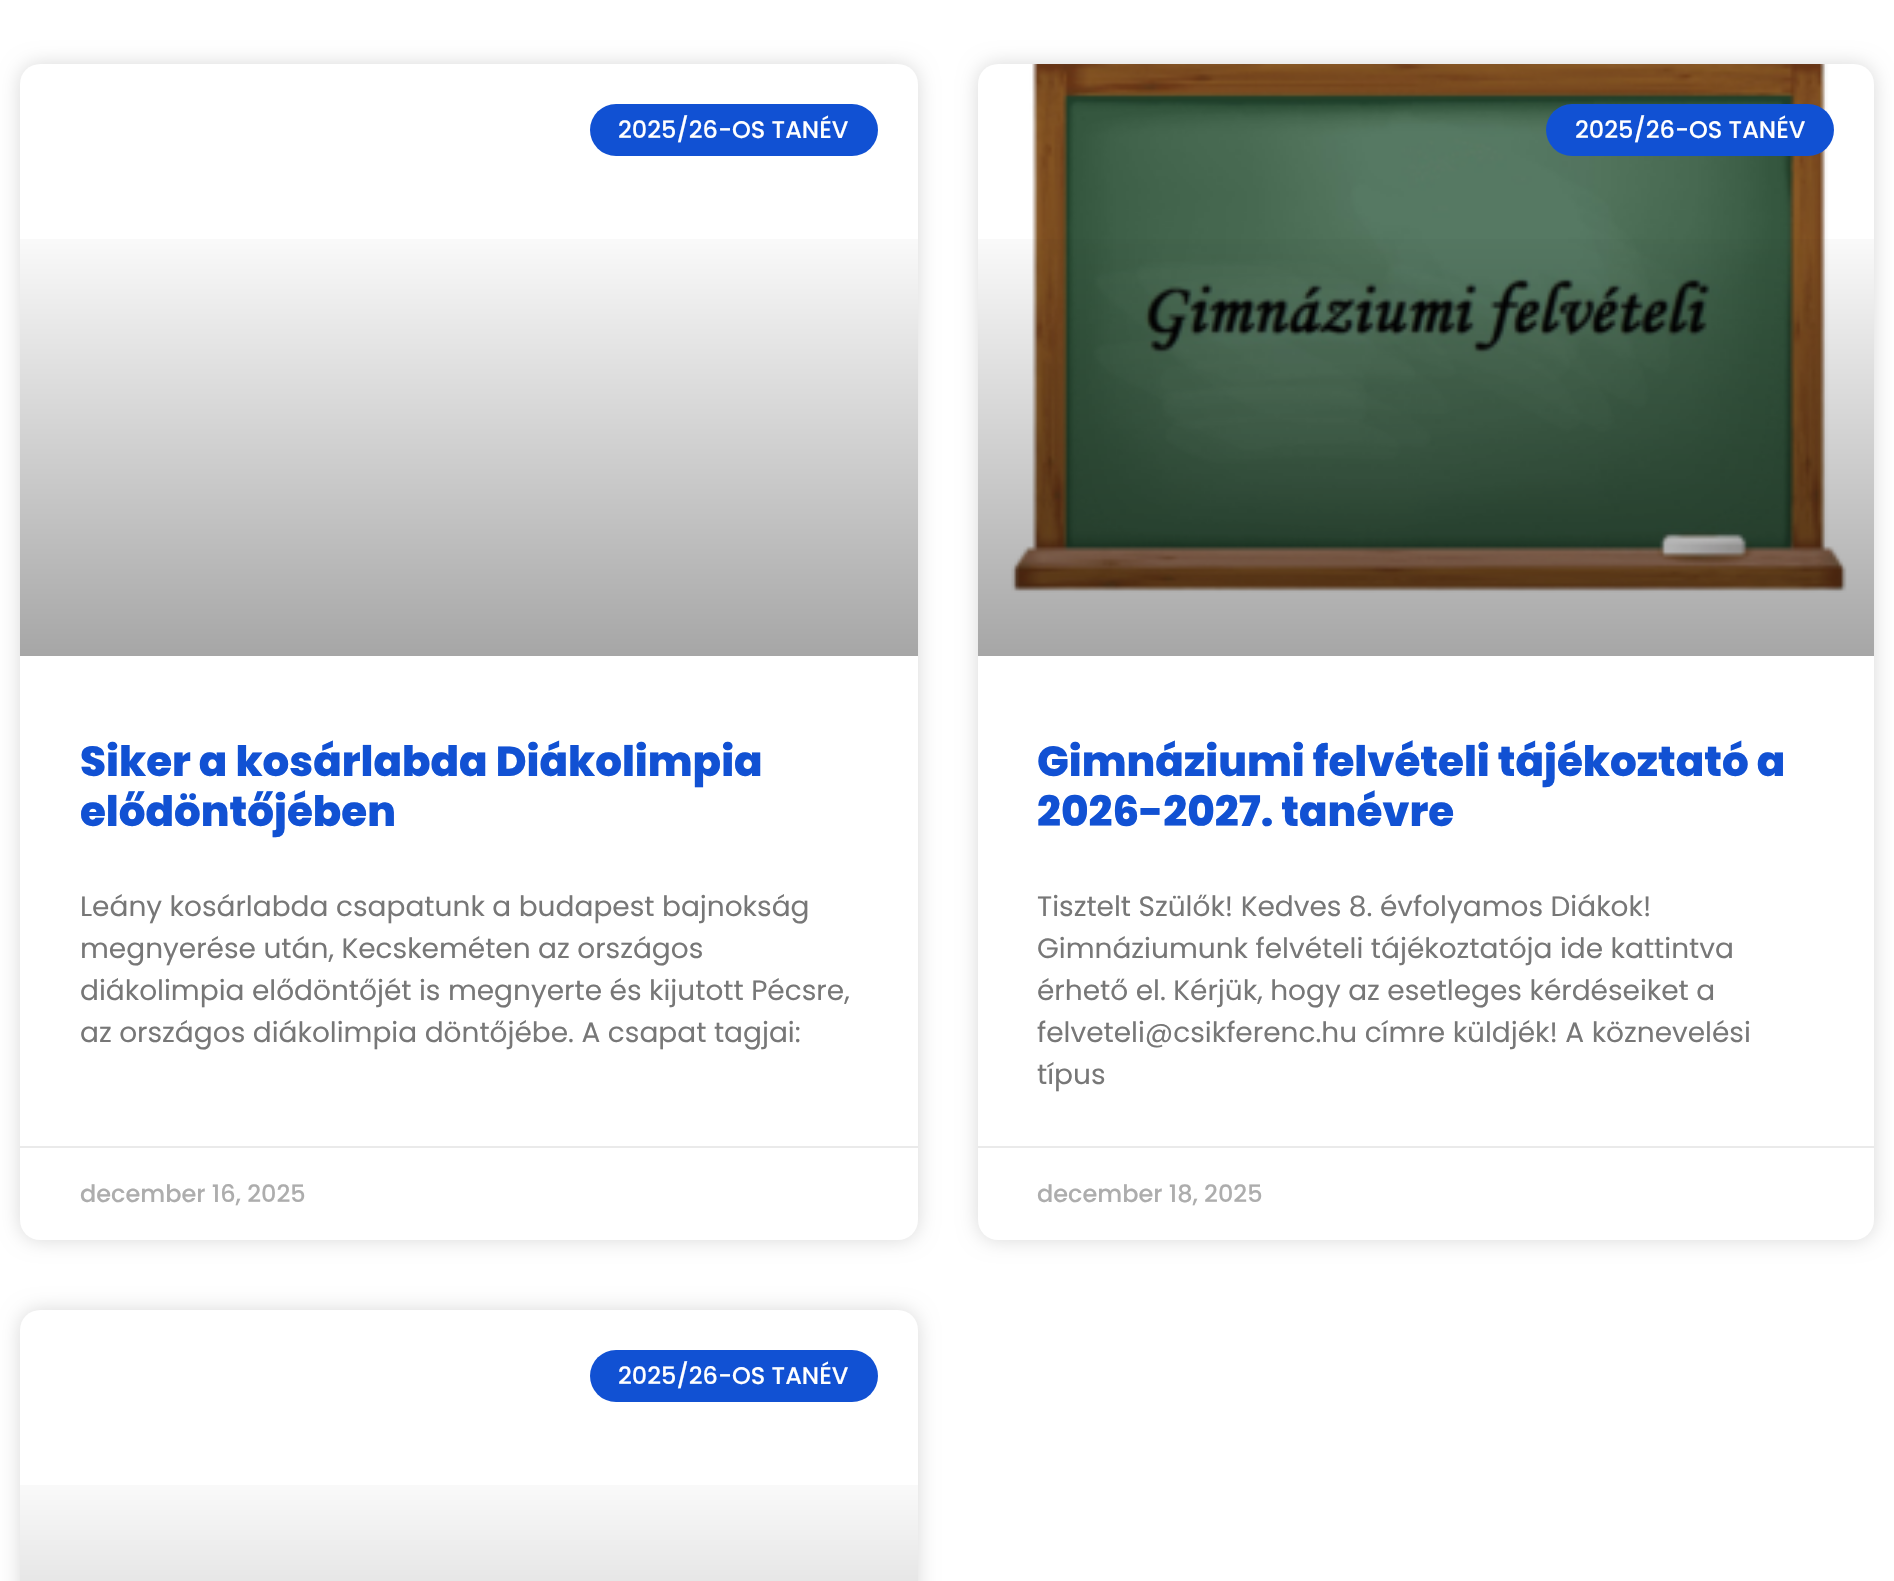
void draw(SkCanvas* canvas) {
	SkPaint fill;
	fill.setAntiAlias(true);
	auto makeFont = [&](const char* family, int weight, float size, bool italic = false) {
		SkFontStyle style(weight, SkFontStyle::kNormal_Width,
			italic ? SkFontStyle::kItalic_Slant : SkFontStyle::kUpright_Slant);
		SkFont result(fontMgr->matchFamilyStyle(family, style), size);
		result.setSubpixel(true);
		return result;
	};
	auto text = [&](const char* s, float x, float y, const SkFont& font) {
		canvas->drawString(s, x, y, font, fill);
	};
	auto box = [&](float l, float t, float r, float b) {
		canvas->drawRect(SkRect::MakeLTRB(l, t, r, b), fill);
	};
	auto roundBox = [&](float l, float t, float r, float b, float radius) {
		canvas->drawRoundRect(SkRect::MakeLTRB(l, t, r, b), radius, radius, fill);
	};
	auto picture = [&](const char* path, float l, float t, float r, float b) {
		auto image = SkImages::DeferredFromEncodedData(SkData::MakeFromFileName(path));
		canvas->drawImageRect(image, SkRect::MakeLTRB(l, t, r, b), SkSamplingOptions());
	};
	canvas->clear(0xFFFFFFFF);
	fill.setColor(0x26000000);
	fill.setMaskFilter(SkMaskFilter::MakeBlur(kNormal_SkBlurStyle, 10));
	canvas->drawRoundRect(SkRect::MakeLTRB(20, 64, 918, 1240), 20, 20, fill);
	fill.setMaskFilter(nullptr);
	fill.setColor(0xFFFFFFFF);
	roundBox(20, 64, 918, 1240, 20);
	fill.setColor(0xFF1151D3);
	roundBox(590, 104, 878, 156, 26);
	{
		const SkColor colors[] = {0x59000000, 0x00000000};
		const float stops[] = {0, 0.75f};
		const SkPoint ends[] = {{469, 656}, {469, 64}};
		fill.setShader(SkGradientShader::MakeLinear(ends, colors, stops, 2, SkTileMode::kClamp));
		fill.setAlpha(255);
	}
	box(20, 239, 918, 656);
	fill.setShader(nullptr);
	fill.setColor(0xFFEAEAEA);
	box(20, 1146, 918, 1148);
	fill.setColor(0x26000000);
	fill.setMaskFilter(SkMaskFilter::MakeBlur(kNormal_SkBlurStyle, 10));
	canvas->drawRoundRect(SkRect::MakeLTRB(978, 64, 1874, 1240), 20, 20, fill);
	fill.setMaskFilter(nullptr);
	fill.setColor(0xFFFFFFFF);
	roundBox(978, 64, 1874, 1240, 20);
	picture("image0.png", 1011, 64, 1847, 593);
	{
		const SkColor colors[] = {0x59000000, 0x00000000};
		const float stops[] = {0, 0.75f};
		const SkPoint ends[] = {{1426, 656}, {1426, 64}};
		fill.setShader(SkGradientShader::MakeLinear(ends, colors, stops, 2, SkTileMode::kClamp));
		fill.setAlpha(255);
	}
	box(978, 239, 1874, 656);
	fill.setShader(nullptr);
	fill.setColor(0xFF1151D3);
	roundBox(1546, 104, 1834, 156, 26);
	fill.setColor(0xFFEAEAEA);
	box(978, 1146, 1874, 1148);
	fill.setColor(0x26000000);
	fill.setMaskFilter(SkMaskFilter::MakeBlur(kNormal_SkBlurStyle, 10));
	canvas->drawRoundRect(SkRect::MakeLTRB(20, 1310, 918, 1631), 20, 20, fill);
	fill.setMaskFilter(nullptr);
	fill.setColor(0xFFFFFFFF);
	roundBox(20, 1310, 918, 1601, 20);
	fill.setColor(0xFF1151D3);
	roundBox(590, 1350, 878, 1402, 26);
	{
		const SkColor colors[] = {0x59000000, 0x00000000};
		const float stops[] = {0, 0.75f};
		const SkPoint ends[] = {{469, 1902}, {469, 1310}};
		fill.setShader(SkGradientShader::MakeLinear(ends, colors, stops, 2, SkTileMode::kClamp));
		fill.setAlpha(255);
	}
	box(20, 1485, 918, 1581);
	auto font1 = makeFont("Poppins", 500, 24);
	fill.setShader(nullptr);
	fill.setColor(0xFFFFFFFF);
	text("2025/26-OS TANÉV", 618, 138, font1);
	auto font2 = makeFont("Poppins", 800, 42);
	fill.setColor(0xFF1151D3);
	text("Siker a kosárlabda Diákolimpia", 80, 776, font2);
	text("elődöntőjében", 80, 826, font2);
	auto font3 = makeFont("Poppins", 400, 28);
	fill.setColor(0xFF777777);
	text("Leány kosárlabda csapatunk a budapest bajnokság", 80, 916, font3);
	text("megnyerése után, Kecskeméten az országos", 80, 958, font3);
	text("diákolimpia elődöntőjét is megnyerte és kijutott Pécsre,", 80, 1000, font3);
	text("az országos diákolimpia döntőjébe. A csapat tagjai:", 80, 1042, font3);
	fill.setColor(0xFFADADAD);
	text("december 16, 2025", 80, 1202, font1);
	fill.setColor(0xFFFFFFFF);
	text("2025/26-OS TANÉV", 1575, 138, font1);
	fill.setColor(0xFF1151D3);
	text("Gimnáziumi felvételi tájékoztató a", 1037, 776, font2);
	text("2026-2027. tanévre", 1037, 826, font2);
	fill.setColor(0xFF777777);
	text("Tisztelt Szülők! Kedves 8. évfolyamos Diákok!", 1037, 916, font3);
	text("Gimnáziumunk felvételi tájékoztatója ide kattintva", 1037, 958, font3);
	text("érhető el. Kérjük, hogy az esetleges kérdéseiket a", 1037, 1000, font3);
	text("felveteli@csikferenc.hu címre küldjék! A köznevelési", 1037, 1042, font3);
	text("típus", 1037, 1084, font3);
	fill.setColor(0xFFADADAD);
	text("december 18, 2025", 1037, 1202, font1);
	fill.setColor(0xFFFFFFFF);
	text("2025/26-OS TANÉV", 618, 1384, font1);
}
